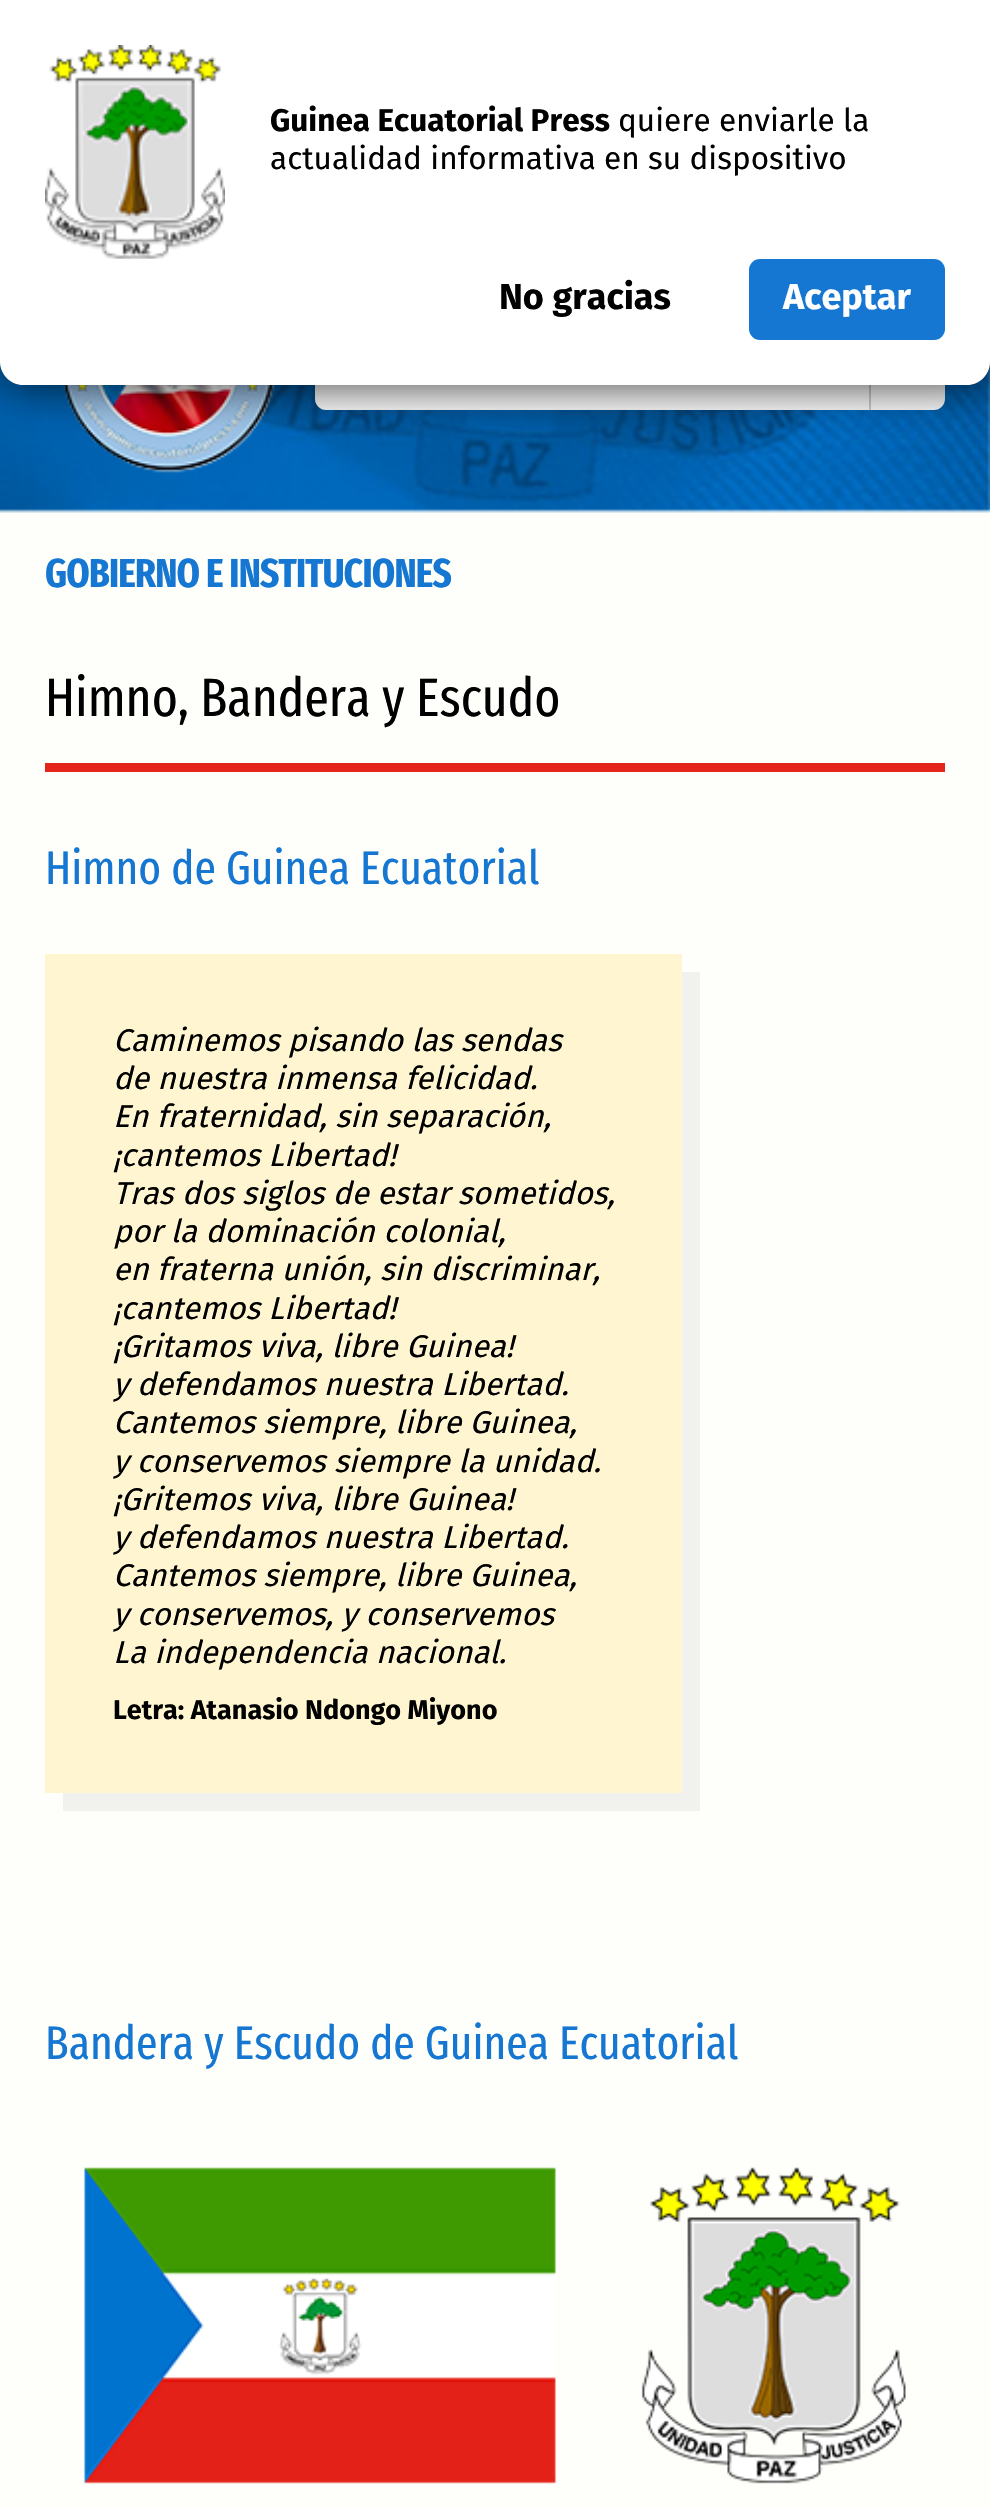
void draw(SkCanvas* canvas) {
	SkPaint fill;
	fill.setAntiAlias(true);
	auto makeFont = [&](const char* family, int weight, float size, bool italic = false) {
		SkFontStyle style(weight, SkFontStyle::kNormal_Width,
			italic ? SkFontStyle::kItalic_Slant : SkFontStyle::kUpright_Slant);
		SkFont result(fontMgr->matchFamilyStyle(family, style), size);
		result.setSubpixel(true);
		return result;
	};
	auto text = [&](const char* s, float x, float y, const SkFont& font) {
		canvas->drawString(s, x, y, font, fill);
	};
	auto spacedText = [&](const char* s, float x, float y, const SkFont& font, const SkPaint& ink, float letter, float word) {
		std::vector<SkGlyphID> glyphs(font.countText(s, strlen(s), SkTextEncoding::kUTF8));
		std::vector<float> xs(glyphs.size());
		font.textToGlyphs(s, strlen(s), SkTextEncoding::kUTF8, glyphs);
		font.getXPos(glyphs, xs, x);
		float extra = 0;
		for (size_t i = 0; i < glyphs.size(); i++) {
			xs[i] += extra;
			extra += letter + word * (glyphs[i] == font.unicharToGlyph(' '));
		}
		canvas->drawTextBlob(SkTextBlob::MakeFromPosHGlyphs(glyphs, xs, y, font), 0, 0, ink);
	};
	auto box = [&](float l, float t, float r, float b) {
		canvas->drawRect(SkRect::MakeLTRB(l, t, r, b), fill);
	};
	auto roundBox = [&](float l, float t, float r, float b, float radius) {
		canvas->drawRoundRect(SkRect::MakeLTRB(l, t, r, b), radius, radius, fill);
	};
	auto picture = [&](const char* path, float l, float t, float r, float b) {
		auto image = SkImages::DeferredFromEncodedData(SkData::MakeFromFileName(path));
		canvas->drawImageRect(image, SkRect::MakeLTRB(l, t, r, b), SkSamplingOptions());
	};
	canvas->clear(0xFFFEFFFA);
	picture("image1.png", 0, 362, 990, 513);
	fill.setColor(0xFFFFFFFF);
	canvas->drawPath(SkPathBuilder().moveTo(326, 322).lineTo(869, 322).lineTo(869, 410).lineTo(326, 410).cubicTo(320, 410, 315, 405, 315, 399).lineTo(315, 333).cubicTo(315, 327, 320, 322, 326, 322).close().detach(), fill);
	canvas->drawPath(SkPathBuilder().moveTo(869, 322).lineTo(934, 322).cubicTo(940, 322, 945, 327, 945, 333).lineTo(945, 399).cubicTo(945, 405, 940, 410, 934, 410).lineTo(869, 410).close().detach(), fill);
	fill.setColor(0xFFCFCFCF);
	box(869, 385, 871, 410);
	picture("image2.png", 63, 385, 275, 473);
	fill.setColor(0xBF000000);
	fill.setMaskFilter(SkMaskFilter::MakeBlur(kNormal_SkBlurStyle, 23.5f));
	canvas->drawRoundRect(SkRect::MakeLTRB(2, 2, 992, 387), 23, 23, fill);
	fill.setMaskFilter(nullptr);
	fill.setColor(0xFFFFFFFF);
	canvas->drawPath(SkPathBuilder().moveTo(0, 0).lineTo(990, 0).lineTo(990, 362).cubicTo(990, 374.5f, 979.5f, 385, 967, 385).lineTo(23, 385).cubicTo(10.5f, 385, 0, 374.5f, 0, 362).close().detach(), fill);
	picture("image0.png", 45, 45, 225, 259);
	fill.setColor(0xFF1577D2);
	roundBox(749, 259, 945, 340, 11);
	fill.setColor(0xFFE4251C);
	box(45, 763, 945, 772);
	fill.setColor(0xFFF1F2EE);
	canvas->drawPath(SkPathBuilder().moveTo(63, 1793).lineTo(63, 1811).lineTo(700, 1811).lineTo(700, 972).lineTo(682, 972).lineTo(682, 1793).close().detach(), fill);
	fill.setColor(0xFFFFF6D1);
	box(45, 954, 682, 1793);
	picture("image3.png", 84, 2167, 906, 2484);
	auto font1 = makeFont("Fira Sans", 700, 31.5f);
	fill.setColor(0xFF000000);
	text("Guinea Ecuatorial Press", 270, 131, font1);
	auto font2 = makeFont("Fira Sans", 400, 31.5f);
	text("quiere enviarle la", 618, 131, font2);
	text("actualidad informativa en su dispositivo", 270, 169, font2);
	auto font3 = makeFont("Fira Sans", 700, 36);
	text("No gracias", 499, 309, font3);
	fill.setColor(0xFFFFFFFF);
	text("Aceptar", 783, 309, font3);
	auto font4 = makeFont("Fira Sans Extra Condensed", 700, 40.5f);
	fill.setColor(0xFF1577D2);
	spacedText("GOBIERNO E INSTITUCIONES", 45, 587, font4, fill, -0.8f, 0);
	auto font5 = makeFont("Fira Sans Extra Condensed", 400, 54);
	fill.setColor(0xFF000000);
	text("Himno, Bandera y Escudo", 45, 716, font5);
	auto font6 = makeFont("Fira Sans Extra Condensed", 400, 47.25f);
	fill.setColor(0xFF1577D2);
	text("Himno de Guinea Ecuatorial", 45, 884, font6);
	auto font7 = makeFont("Fira Sans", 400, 31.5f, true);
	fill.setColor(0xFF000000);
	text("Caminemos pisando las sendas", 113, 1051, font7);
	text("de nuestra inmensa felicidad.", 113, 1089, font7);
	text("En fraternidad, sin separación,", 113, 1127, font7);
	text("¡cantemos Libertad!", 113, 1166, font7);
	text("Tras dos siglos de estar sometidos,", 113, 1204, font7);
	text("por la dominación colonial,", 113, 1242, font7);
	text("en fraterna unión, sin discriminar,", 113, 1280, font7);
	text("¡cantemos Libertad!", 113, 1319, font7);
	text("¡Gritamos viva, libre Guinea!", 113, 1357, font7);
	text("y defendamos nuestra Libertad.", 113, 1395, font7);
	text("Cantemos siempre, libre Guinea,", 113, 1433, font7);
	text("y conservemos siempre la unidad.", 113, 1472, font7);
	text("¡Gritemos viva, libre Guinea!", 113, 1510, font7);
	text("y defendamos nuestra Libertad.", 113, 1548, font7);
	text("Cantemos siempre, libre Guinea,", 113, 1586, font7);
	text("y conservemos, y conservemos", 113, 1625, font7);
	text("La independencia nacional.", 113, 1663, font7);
	auto font8 = makeFont("Fira Sans", 700, 27);
	text("Letra: Atanasio Ndongo Miyono", 113, 1719, font8);
	fill.setColor(0xFF1577D2);
	text("Bandera y Escudo de Guinea Ecuatorial", 45, 2059, font6);
}
